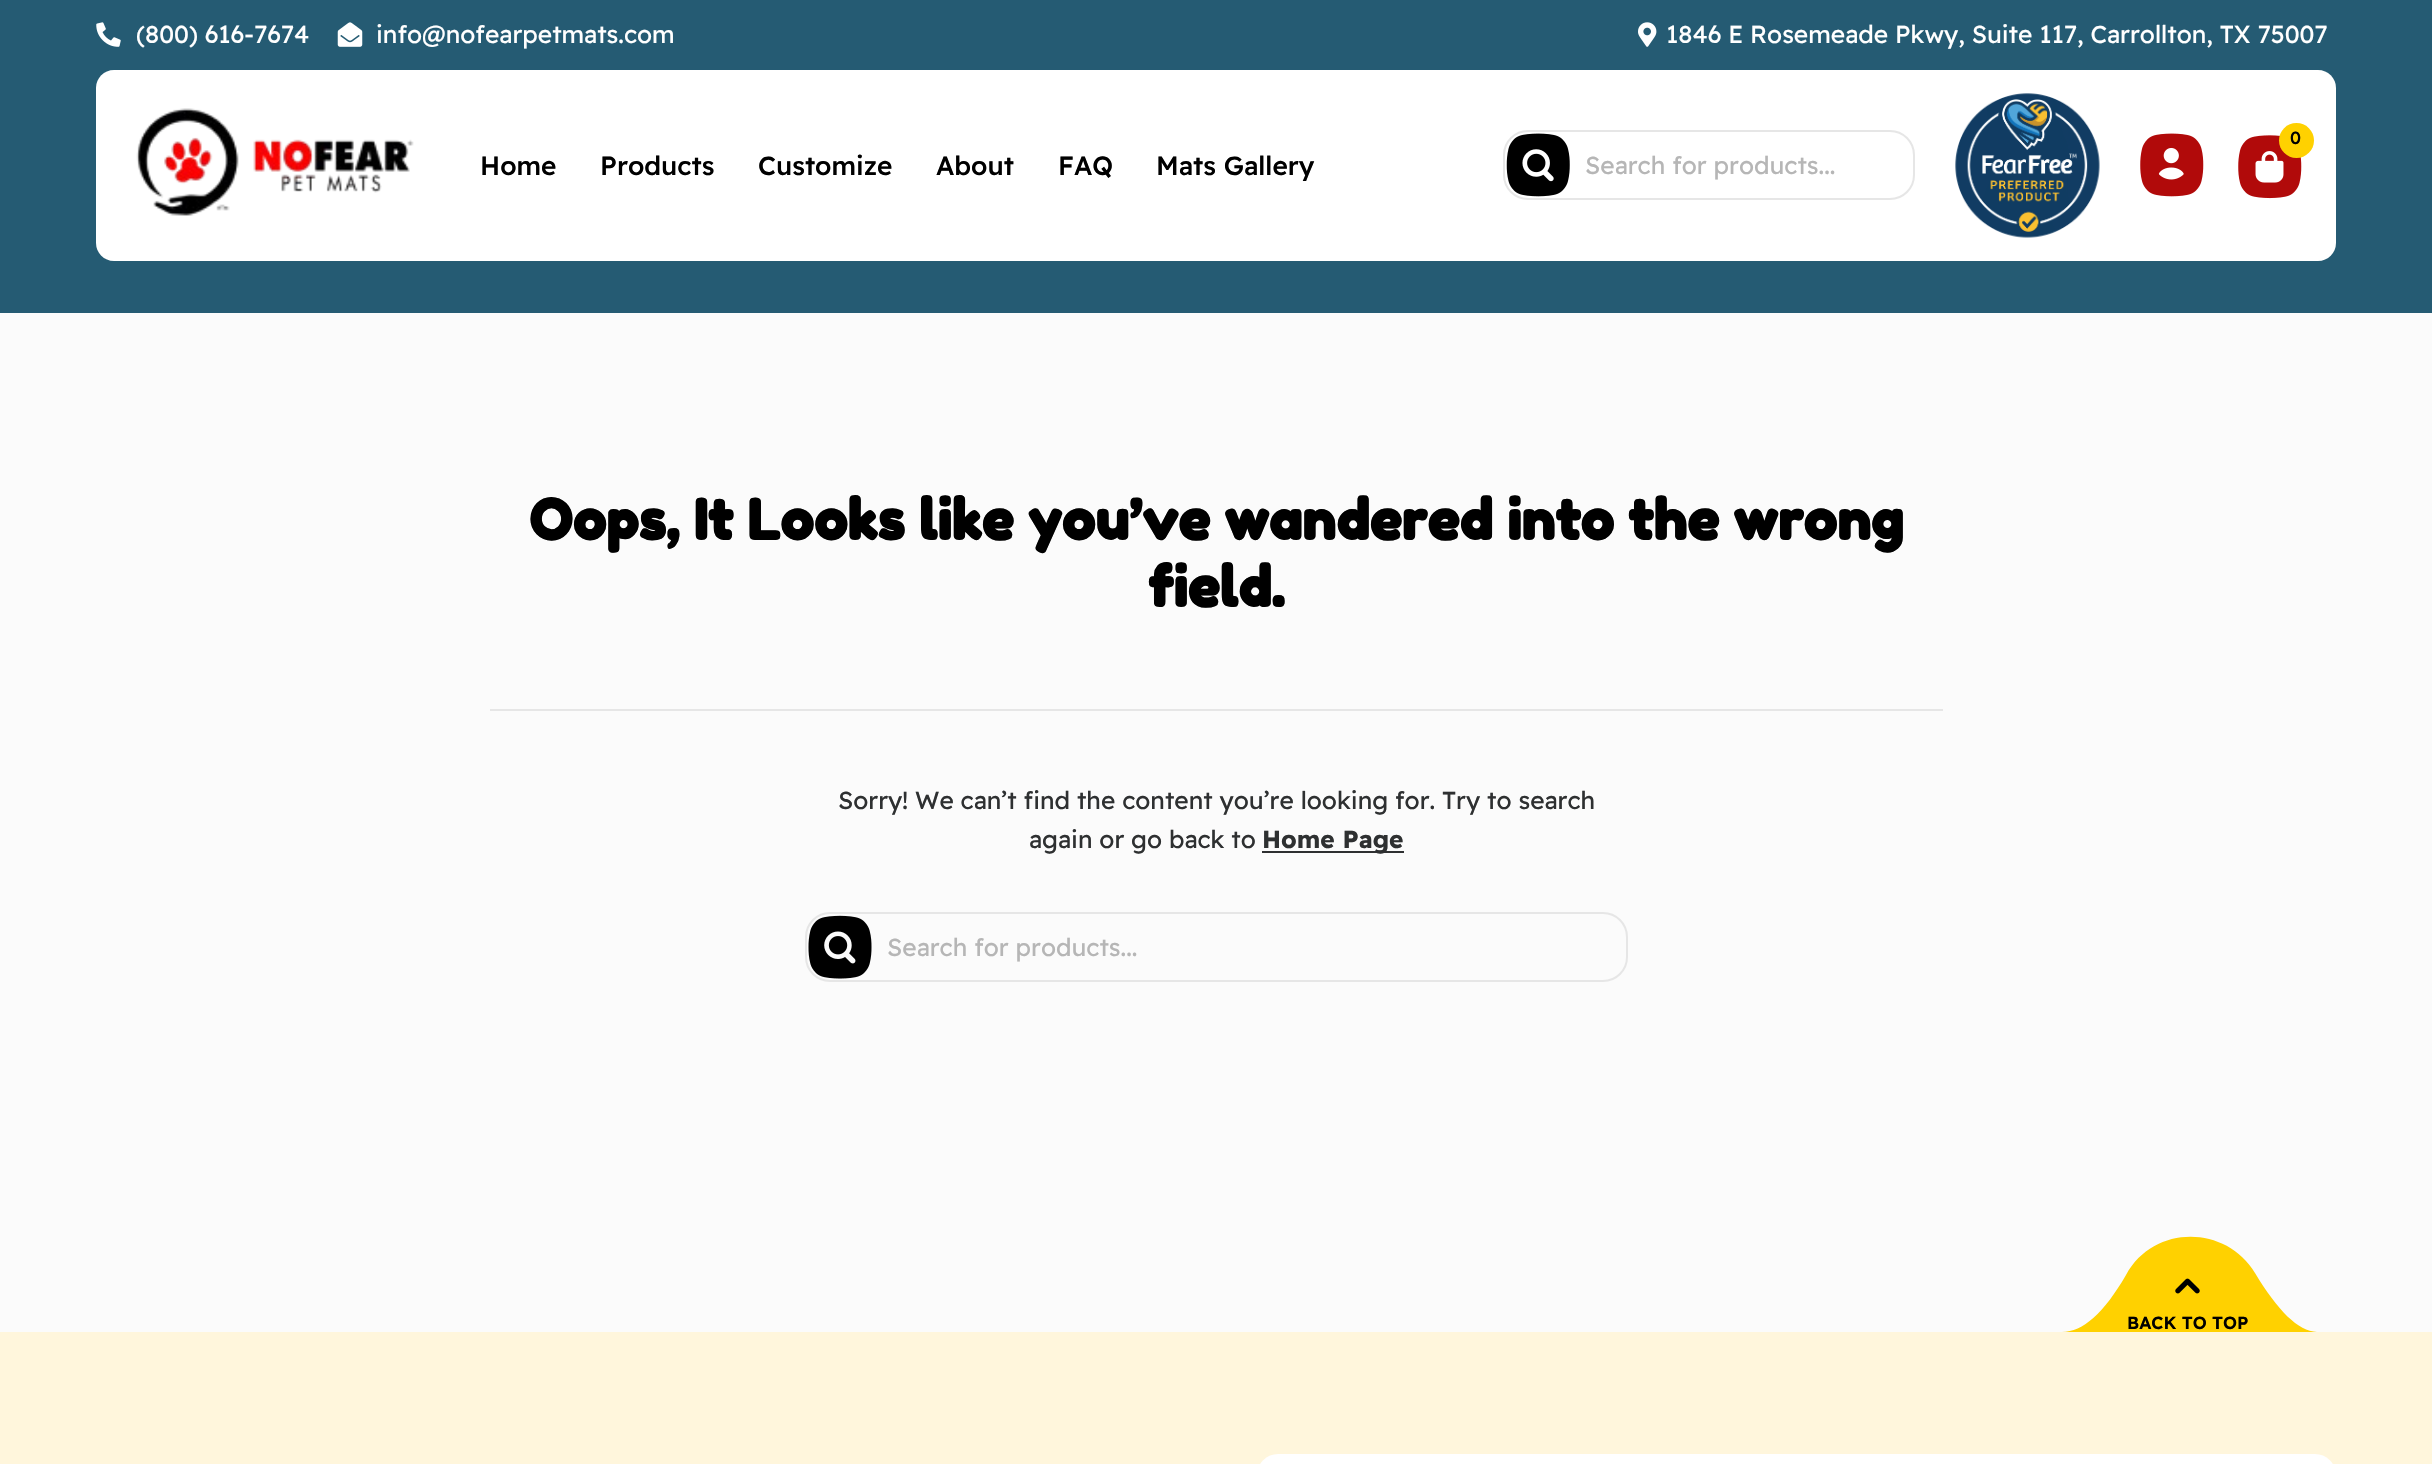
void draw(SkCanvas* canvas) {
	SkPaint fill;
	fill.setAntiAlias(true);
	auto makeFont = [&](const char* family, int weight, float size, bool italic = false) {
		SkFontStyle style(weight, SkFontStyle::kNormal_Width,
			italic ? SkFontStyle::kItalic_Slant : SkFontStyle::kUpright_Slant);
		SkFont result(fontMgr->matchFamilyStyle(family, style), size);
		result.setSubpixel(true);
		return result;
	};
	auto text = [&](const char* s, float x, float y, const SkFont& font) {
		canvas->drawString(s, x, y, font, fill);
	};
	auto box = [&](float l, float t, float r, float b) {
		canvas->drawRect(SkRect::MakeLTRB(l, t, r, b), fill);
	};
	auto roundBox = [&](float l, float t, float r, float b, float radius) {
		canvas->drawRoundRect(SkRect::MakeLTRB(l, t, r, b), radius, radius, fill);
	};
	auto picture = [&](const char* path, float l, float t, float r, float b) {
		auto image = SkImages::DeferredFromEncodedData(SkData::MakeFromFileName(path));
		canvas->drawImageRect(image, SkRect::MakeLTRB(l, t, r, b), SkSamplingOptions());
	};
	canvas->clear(0xFFFBFBFB);
	fill.setColor(0xFF255B73);
	box(0, 0, 2432, 313);
	picture("image0.png", 96, 22, 121, 47);
	picture("image1.png", 337, 22, 363, 47);
	picture("image2.png", 1638, 22, 1657, 47);
	fill.setColor(0xFFFFFFFF);
	canvas->drawPath(SkPathBuilder().moveTo(114, 70).lineTo(1440, 70).lineTo(1440, 261).lineTo(114, 261).cubicTo(104, 261, 96, 253, 96, 243).lineTo(96, 88).cubicTo(96, 78, 104, 70, 114, 70).close().detach(), fill);
	picture("image3.png", 136, 108, 414, 216);
	canvas->drawPath(SkPathBuilder().moveTo(1440, 70).lineTo(2318, 70).cubicTo(2328, 70, 2336, 78, 2336, 88).lineTo(2336, 243).cubicTo(2336, 253, 2328, 261, 2318, 261).lineTo(1440, 261).close().detach(), fill);
	fill.setStyle(SkPaint::kStroke_Style);
	fill.setStrokeWidth(2);
	fill.setColor(0xFFE6E6E6);
	canvas->drawRoundRect(SkRect::MakeLTRB(1504, 131, 1914, 199), 24, 24, fill);
	picture("image4.png", 1506, 133, 1570, 197);
	picture("image5.png", 1955, 93, 2100, 238);
	picture("image6.png", 2140, 133, 2204, 197);
	picture("image7.png", 2238, 135, 2302, 199);
	fill.setStyle(SkPaint::kFill_Style);
	fill.setColor(0xFFFFD100);
	canvas->drawCircle(2296.5f, 140.5f, 17.5f, fill);
	fill.setColor(0xFFE6E6E6);
	box(490, 709, 1943, 711);
	fill.setColor(0xFF2E3031);
	box(1262, 851, 1404, 853);
	fill.setStyle(SkPaint::kStroke_Style);
	fill.setColor(0xFFE6E6E6);
	canvas->drawRoundRect(SkRect::MakeLTRB(806, 913, 1627, 981), 24, 24, fill);
	picture("image8.png", 808, 915, 872, 979);
	fill.setStyle(SkPaint::kFill_Style);
	fill.setColor(0xFFFFD100);
	canvas->drawPath(SkPathBuilder(SkPathFillType::kEvenOdd).moveTo(2255, 1273).cubicTo(2278, 1311, 2298, 1331, 2317, 1332).lineTo(2062, 1332).cubicTo(2083, 1332, 2104, 1313, 2126, 1275).cubicTo(2154, 1224, 2226, 1225, 2255, 1273).close().detach(), fill);
	picture("image9.png", 2175, 1278, 2200, 1294);
	fill.setColor(0xFFFFF6DC);
	box(0, 1332, 2432, 1464);
	fill.setColor(0xFFFFFFFF);
	roundBox(1257, 1454, 2336, 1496, 32);
	auto font1 = makeFont("Readex Pro", 400, 24.5f);
	text("(800) 616-7674", 136, 43, font1);
	text("info@nofearpetmats.com", 376, 43, font1);
	text("1846 E Rosemeade Pkwy, Suite 117, Carrollton, TX 75007", 1666, 43, font1);
	auto font2 = makeFont("Readex Pro", 500, 26.25f);
	fill.setColor(0xFF000000);
	text("Home", 480, 175, font2);
	text("Products", 600, 175, font2);
	text("Customize", 758, 175, font2);
	text("About", 936, 175, font2);
	text("FAQ", 1058, 175, font2);
	text("Mats Gallery", 1156, 175, font2);
	fill.setColor(0xFFB6B6B6);
	text("Search for products...", 1585, 174, font1);
	auto font3 = makeFont("Readex Pro", 500, 17.5f);
	fill.setColor(0xFF000000);
	text("0", 2290, 144, font3);
	auto font4 = makeFont("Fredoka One", 700, 56);
	text("Oops, It Looks like you’ve wandered into the wrong", 529, 540, font4);
	text("field.", 1148, 607, font4);
	fill.setColor(0xFF2E3031);
	text("Sorry! We can’t find the content you’re looking for. Try to search", 838, 809, font1);
	text("again or go back to", 1029, 848, font1);
	auto font5 = makeFont("Readex Pro", 700, 24.5f);
	text("Home Page", 1262, 848, font5);
	fill.setColor(0xFFB6B6B6);
	text("Search for products...", 887, 956, font1);
	auto font6 = makeFont("Readex Pro", 600, 17.5f);
	fill.setColor(0xFF000000);
	text("BACK TO TOP", 2127, 1329, font6);
}
